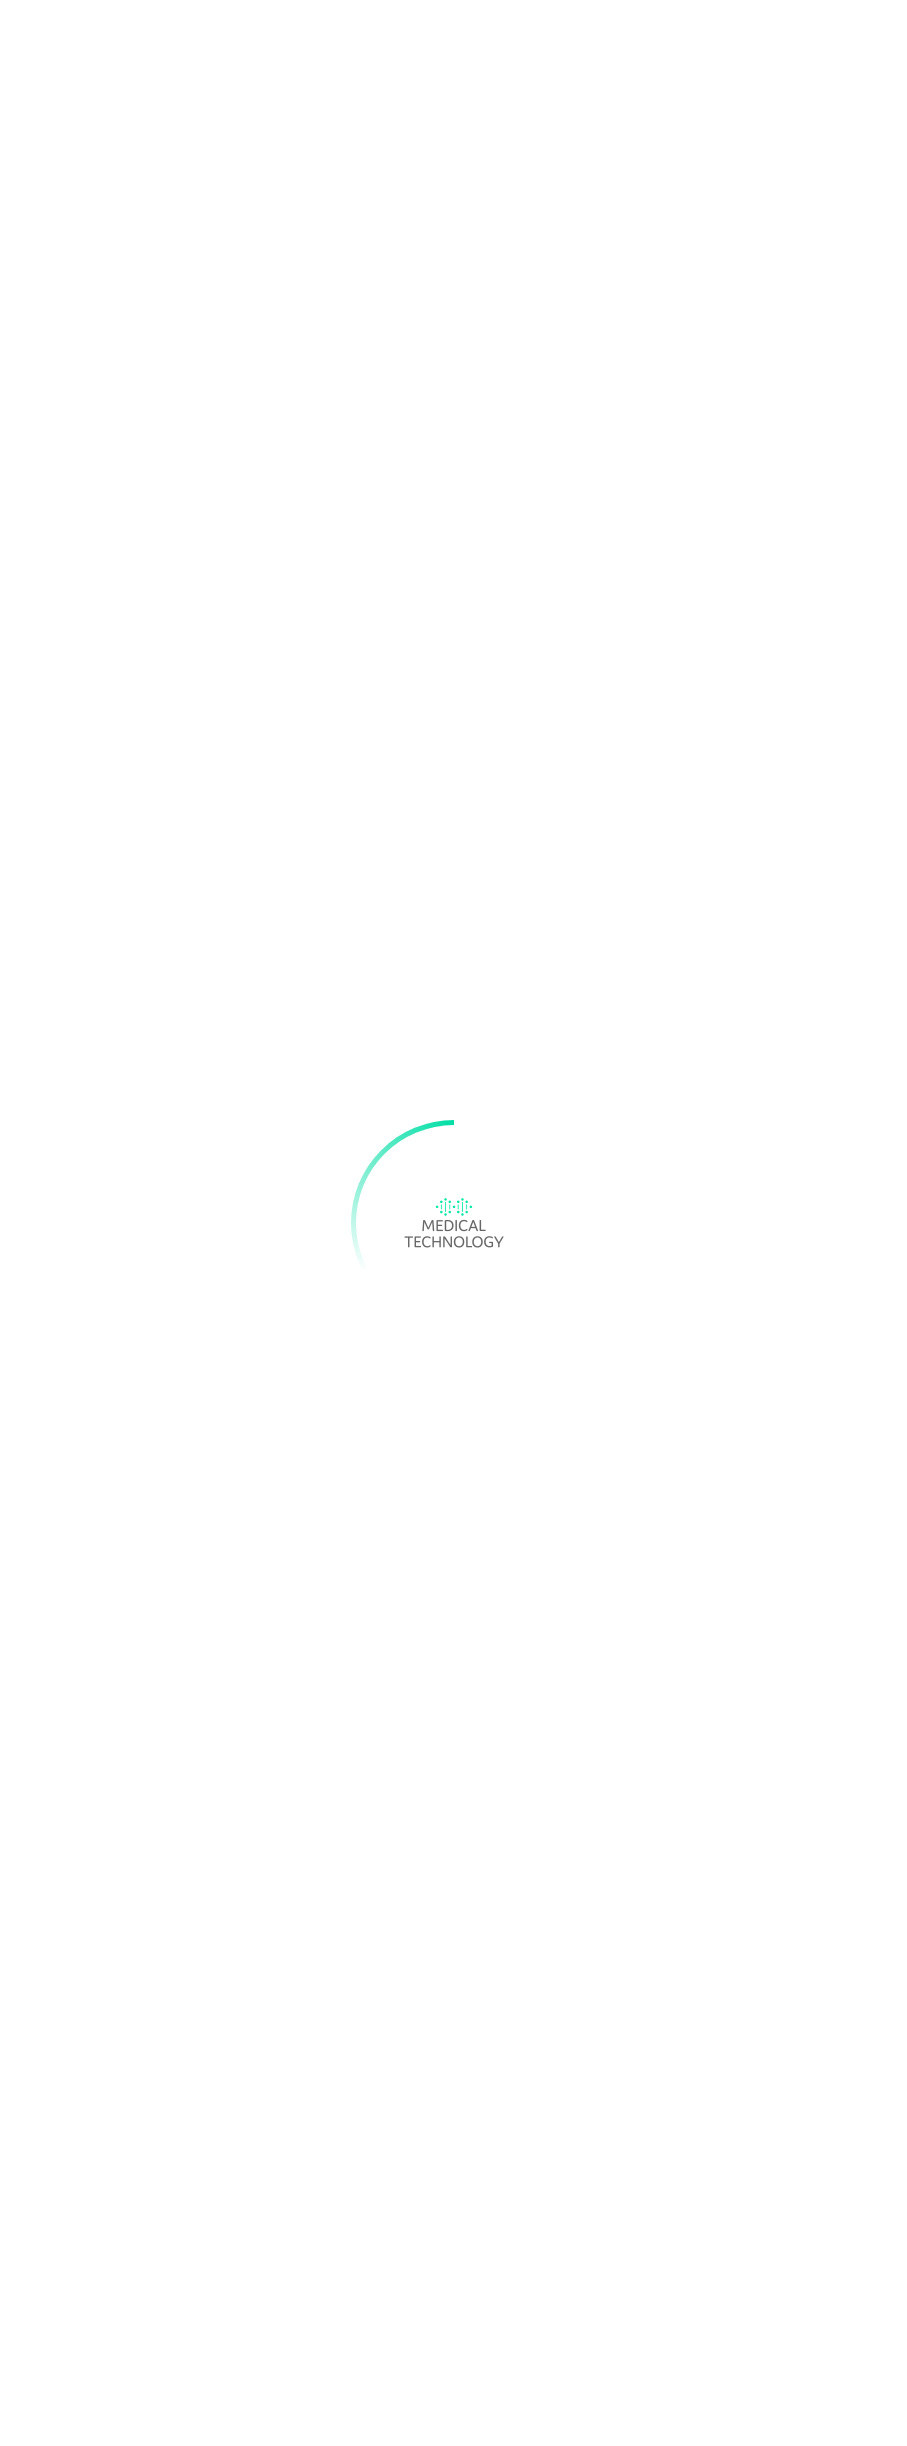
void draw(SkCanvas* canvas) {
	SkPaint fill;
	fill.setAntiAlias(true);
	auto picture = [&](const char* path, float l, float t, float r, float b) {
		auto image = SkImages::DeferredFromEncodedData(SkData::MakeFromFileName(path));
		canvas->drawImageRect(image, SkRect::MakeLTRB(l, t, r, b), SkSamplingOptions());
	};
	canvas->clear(0xFFFFFFFF);
	picture("image0.png", 351, 1120, 454, 1270);
	fill.setColor(0xFFFFFFFF);
	canvas->drawCircle(454, 1223, 98, fill);
	picture("image1.png", 404, 1198, 504, 1248);
}
